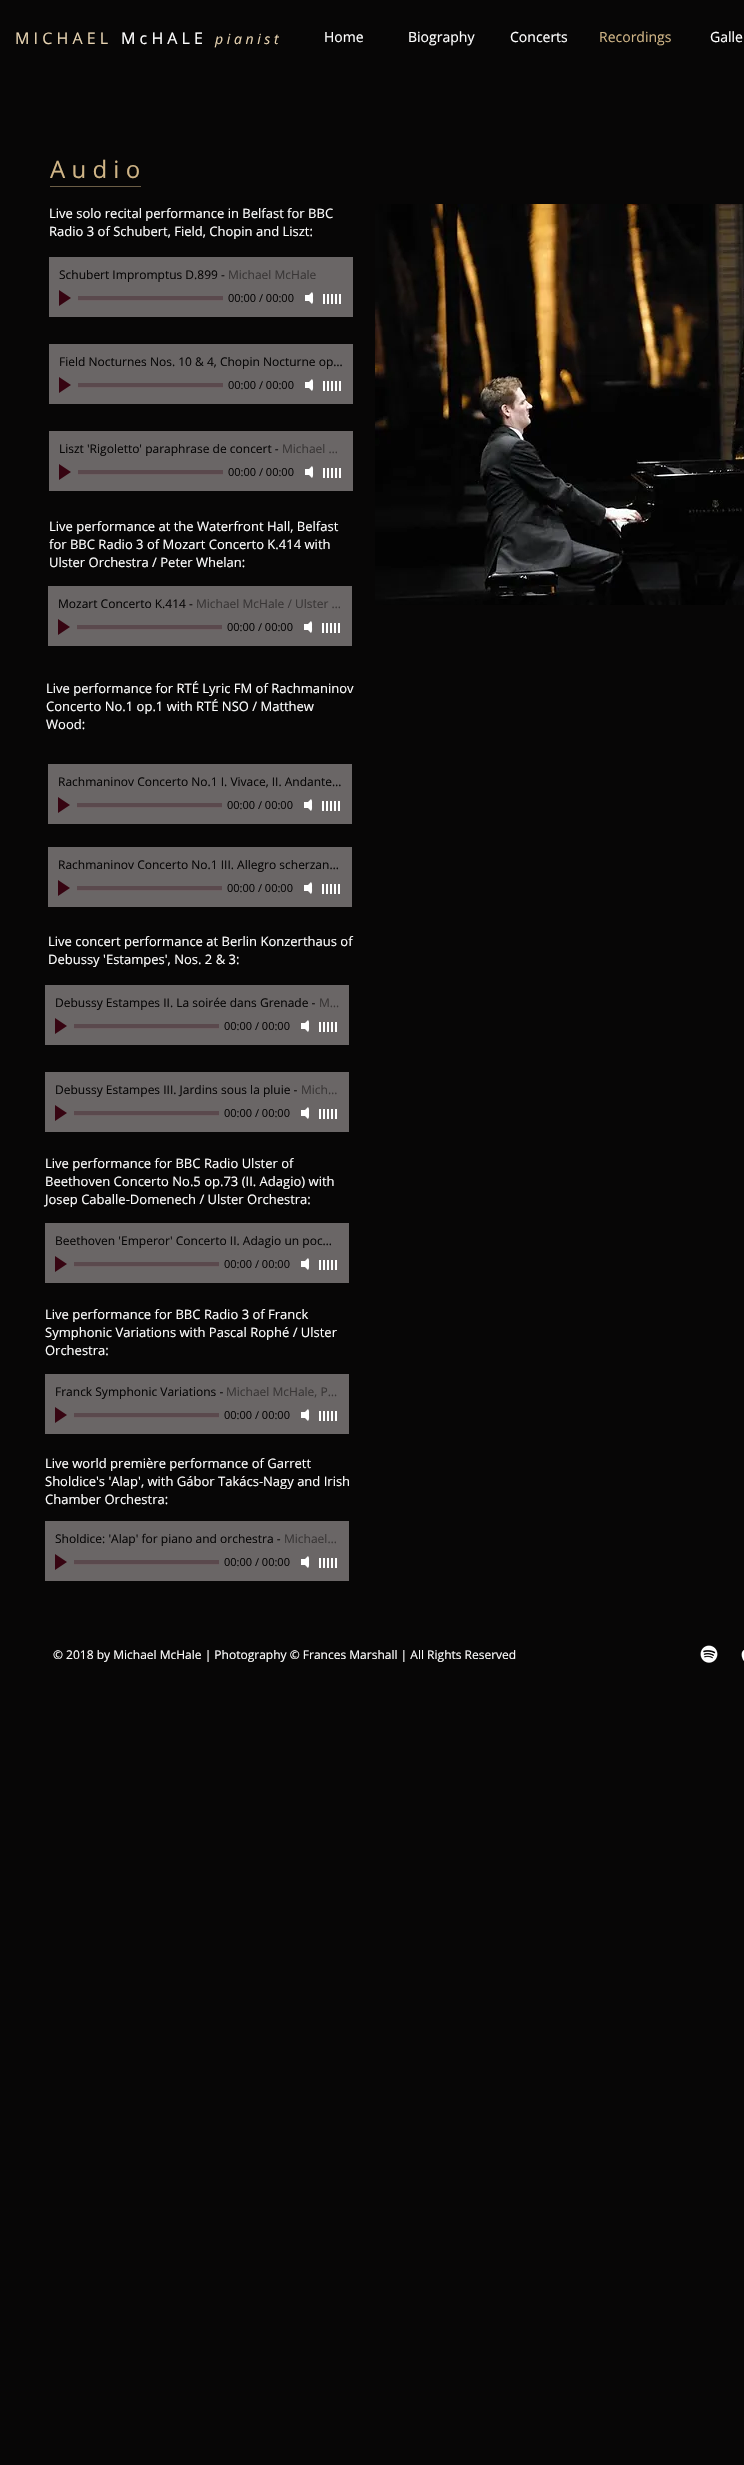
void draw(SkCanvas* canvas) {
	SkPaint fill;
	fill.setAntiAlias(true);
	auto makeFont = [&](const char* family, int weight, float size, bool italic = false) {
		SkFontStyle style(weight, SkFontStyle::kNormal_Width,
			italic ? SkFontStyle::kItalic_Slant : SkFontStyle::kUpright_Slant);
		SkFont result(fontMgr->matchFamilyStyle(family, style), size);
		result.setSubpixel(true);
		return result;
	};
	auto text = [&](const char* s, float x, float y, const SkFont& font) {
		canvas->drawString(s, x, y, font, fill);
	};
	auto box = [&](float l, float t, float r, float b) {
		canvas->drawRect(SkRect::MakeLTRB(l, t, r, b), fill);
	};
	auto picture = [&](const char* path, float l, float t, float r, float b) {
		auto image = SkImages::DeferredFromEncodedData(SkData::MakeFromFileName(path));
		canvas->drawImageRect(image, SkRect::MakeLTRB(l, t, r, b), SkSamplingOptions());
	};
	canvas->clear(0xFF070606);
	fill.setColor(0xFF6B5D46);
	box(50, 186, 141, 187);
	fill.setColor(0xFF6A6666);
	box(49, 257, 353, 317);
	fill.setColor(0xFF360411);
	canvas->drawPath(SkPathBuilder().moveTo(59, 306).lineTo(59, 290).lineTo(71, 298).close().detach(), fill);
	fill.setColor(0xFF5A494D);
	box(78, 296, 223, 300);
	fill.setColor(0xFF6C6062);
	box(78, 300, 223, 301);
	fill.setColor(0xFFFFFFFF);
	canvas->drawPath(SkPathBuilder().moveTo(306, 298).lineTo(312, 304).cubicTo(313.5f, 302.5f, 313, 300, 313, 298).cubicTo(313, 296, 313.5f, 293.5f, 312, 292).close().detach(), fill);
	box(305, 295, 309, 301);
	box(323, 294, 325, 304);
	box(327, 294, 329, 304);
	box(331, 294, 333, 304);
	box(335, 294, 337, 304);
	box(339, 294, 341, 304);
	fill.setColor(0xFF6A6666);
	box(49, 344, 353, 404);
	fill.setColor(0xFF360411);
	canvas->drawPath(SkPathBuilder().moveTo(59, 393).lineTo(59, 377).lineTo(71, 385).close().detach(), fill);
	fill.setColor(0xFF5A494D);
	box(78, 383, 223, 387);
	fill.setColor(0xFF6C6062);
	box(78, 387, 223, 388);
	fill.setColor(0xFFFFFFFF);
	canvas->drawPath(SkPathBuilder().moveTo(306, 385).lineTo(312, 391).cubicTo(313.5f, 389.5f, 313, 387, 313, 385).cubicTo(313, 383, 313.5f, 380.5f, 312, 379).close().detach(), fill);
	box(305, 382, 309, 388);
	box(323, 381, 325, 391);
	box(327, 381, 329, 391);
	box(331, 381, 333, 391);
	box(335, 381, 337, 391);
	box(339, 381, 341, 391);
	fill.setColor(0xFF6A6666);
	box(49, 431, 353, 491);
	fill.setColor(0xFF360411);
	canvas->drawPath(SkPathBuilder().moveTo(59, 480).lineTo(59, 464).lineTo(71, 472).close().detach(), fill);
	fill.setColor(0xFF5A494D);
	box(78, 470, 223, 474);
	fill.setColor(0xFF6C6062);
	box(78, 474, 223, 475);
	fill.setColor(0xFFFFFFFF);
	canvas->drawPath(SkPathBuilder().moveTo(306, 472).lineTo(312, 478).cubicTo(313.5f, 476.5f, 313, 474, 313, 472).cubicTo(313, 470, 313.5f, 467.5f, 312, 466).close().detach(), fill);
	box(305, 469, 309, 475);
	box(323, 468, 325, 478);
	box(327, 468, 329, 478);
	box(331, 468, 333, 478);
	box(335, 468, 337, 478);
	box(339, 468, 341, 478);
	fill.setColor(0xFF6A6666);
	box(48, 586, 352, 646);
	fill.setColor(0xFF360411);
	canvas->drawPath(SkPathBuilder().moveTo(58, 635).lineTo(58, 619).lineTo(70, 627).close().detach(), fill);
	fill.setColor(0xFF5A494D);
	box(77, 625, 222, 629);
	fill.setColor(0xFF6C6062);
	box(77, 629, 222, 630);
	fill.setColor(0xFFFFFFFF);
	canvas->drawPath(SkPathBuilder().moveTo(305, 627).lineTo(311, 633).cubicTo(312.5f, 631.5f, 312, 629, 312, 627).cubicTo(312, 625, 312.5f, 622.5f, 311, 621).close().detach(), fill);
	box(304, 624, 308, 630);
	box(322, 623, 324, 633);
	box(326, 623, 328, 633);
	box(330, 623, 332, 633);
	box(334, 623, 336, 633);
	box(338, 623, 340, 633);
	fill.setColor(0xFF6A6666);
	box(48, 764, 352, 824);
	fill.setColor(0xFF360411);
	canvas->drawPath(SkPathBuilder().moveTo(58, 813).lineTo(58, 797).lineTo(70, 805).close().detach(), fill);
	fill.setColor(0xFF5A494D);
	box(77, 803, 222, 807);
	fill.setColor(0xFF6C6062);
	box(77, 807, 222, 808);
	fill.setColor(0xFFFFFFFF);
	canvas->drawPath(SkPathBuilder().moveTo(305, 805).lineTo(311, 811).cubicTo(312.5f, 809.5f, 312, 807, 312, 805).cubicTo(312, 803, 312.5f, 800.5f, 311, 799).close().detach(), fill);
	box(304, 802, 308, 808);
	box(322, 801, 324, 811);
	box(326, 801, 328, 811);
	box(330, 801, 332, 811);
	box(334, 801, 336, 811);
	box(338, 801, 340, 811);
	fill.setColor(0xFF6A6666);
	box(48, 847, 352, 907);
	fill.setColor(0xFF360411);
	canvas->drawPath(SkPathBuilder().moveTo(58, 896).lineTo(58, 880).lineTo(70, 888).close().detach(), fill);
	fill.setColor(0xFF5A494D);
	box(77, 886, 222, 890);
	fill.setColor(0xFF6C6062);
	box(77, 890, 222, 891);
	fill.setColor(0xFFFFFFFF);
	canvas->drawPath(SkPathBuilder().moveTo(305, 888).lineTo(311, 894).cubicTo(312.5f, 892.5f, 312, 890, 312, 888).cubicTo(312, 886, 312.5f, 883.5f, 311, 882).close().detach(), fill);
	box(304, 885, 308, 891);
	box(322, 884, 324, 894);
	box(326, 884, 328, 894);
	box(330, 884, 332, 894);
	box(334, 884, 336, 894);
	box(338, 884, 340, 894);
	fill.setColor(0xFF6A6666);
	box(45, 985, 349, 1045);
	fill.setColor(0xFF360411);
	canvas->drawPath(SkPathBuilder().moveTo(55, 1034).lineTo(55, 1018).lineTo(67, 1026).close().detach(), fill);
	fill.setColor(0xFF5A494D);
	box(74, 1024, 219, 1028);
	fill.setColor(0xFF6C6062);
	box(74, 1028, 219, 1029);
	fill.setColor(0xFFFFFFFF);
	canvas->drawPath(SkPathBuilder().moveTo(302, 1026).lineTo(308, 1032).cubicTo(309.5f, 1030.5f, 309, 1028, 309, 1026).cubicTo(309, 1024, 309.5f, 1021.5f, 308, 1020).close().detach(), fill);
	box(301, 1023, 305, 1029);
	box(319, 1022, 321, 1032);
	box(323, 1022, 325, 1032);
	box(327, 1022, 329, 1032);
	box(331, 1022, 333, 1032);
	box(335, 1022, 337, 1032);
	fill.setColor(0xFF6A6666);
	box(45, 1072, 349, 1132);
	fill.setColor(0xFF360411);
	canvas->drawPath(SkPathBuilder().moveTo(55, 1121).lineTo(55, 1105).lineTo(67, 1113).close().detach(), fill);
	fill.setColor(0xFF5A494D);
	box(74, 1111, 219, 1115);
	fill.setColor(0xFF6C6062);
	box(74, 1115, 219, 1116);
	fill.setColor(0xFFFFFFFF);
	canvas->drawPath(SkPathBuilder().moveTo(302, 1113).lineTo(308, 1119).cubicTo(309.5f, 1117.5f, 309, 1115, 309, 1113).cubicTo(309, 1111, 309.5f, 1108.5f, 308, 1107).close().detach(), fill);
	box(301, 1110, 305, 1116);
	box(319, 1109, 321, 1119);
	box(323, 1109, 325, 1119);
	box(327, 1109, 329, 1119);
	box(331, 1109, 333, 1119);
	box(335, 1109, 337, 1119);
	fill.setColor(0xFF6A6666);
	box(45, 1223, 349, 1283);
	fill.setColor(0xFF360411);
	canvas->drawPath(SkPathBuilder().moveTo(55, 1272).lineTo(55, 1256).lineTo(67, 1264).close().detach(), fill);
	fill.setColor(0xFF5A494D);
	box(74, 1262, 219, 1266);
	fill.setColor(0xFF6C6062);
	box(74, 1266, 219, 1267);
	fill.setColor(0xFFFFFFFF);
	canvas->drawPath(SkPathBuilder().moveTo(302, 1264).lineTo(308, 1270).cubicTo(309.5f, 1268.5f, 309, 1266, 309, 1264).cubicTo(309, 1262, 309.5f, 1259.5f, 308, 1258).close().detach(), fill);
	box(301, 1261, 305, 1267);
	box(319, 1260, 321, 1270);
	box(323, 1260, 325, 1270);
	box(327, 1260, 329, 1270);
	box(331, 1260, 333, 1270);
	box(335, 1260, 337, 1270);
	fill.setColor(0xFF6A6666);
	box(45, 1374, 349, 1434);
	fill.setColor(0xFF360411);
	canvas->drawPath(SkPathBuilder().moveTo(55, 1423).lineTo(55, 1407).lineTo(67, 1415).close().detach(), fill);
	fill.setColor(0xFF5A494D);
	box(74, 1413, 219, 1417);
	fill.setColor(0xFF6C6062);
	box(74, 1417, 219, 1418);
	fill.setColor(0xFFFFFFFF);
	canvas->drawPath(SkPathBuilder().moveTo(302, 1415).lineTo(308, 1421).cubicTo(309.5f, 1419.5f, 309, 1417, 309, 1415).cubicTo(309, 1413, 309.5f, 1410.5f, 308, 1409).close().detach(), fill);
	box(301, 1412, 305, 1418);
	box(319, 1411, 321, 1421);
	box(323, 1411, 325, 1421);
	box(327, 1411, 329, 1421);
	box(331, 1411, 333, 1421);
	box(335, 1411, 337, 1421);
	fill.setColor(0xFF6A6666);
	box(45, 1521, 349, 1581);
	fill.setColor(0xFF360411);
	canvas->drawPath(SkPathBuilder().moveTo(55, 1570).lineTo(55, 1554).lineTo(67, 1562).close().detach(), fill);
	fill.setColor(0xFF5A494D);
	box(74, 1560, 219, 1564);
	fill.setColor(0xFF6C6062);
	box(74, 1564, 219, 1565);
	fill.setColor(0xFFFFFFFF);
	canvas->drawPath(SkPathBuilder().moveTo(302, 1562).lineTo(308, 1568).cubicTo(309.5f, 1566.5f, 309, 1564, 309, 1562).cubicTo(309, 1560, 309.5f, 1557.5f, 308, 1556).close().detach(), fill);
	box(301, 1559, 305, 1565);
	box(319, 1558, 321, 1568);
	box(323, 1558, 325, 1568);
	box(327, 1558, 329, 1568);
	box(331, 1558, 333, 1568);
	box(335, 1558, 337, 1568);
	picture("image0.png", 375, 204, 744, 605);
	picture("image1.png", 700, 1645, 718, 1663);
	picture("image2.png", 741, 1650, 744, 1661);
	auto font1 = makeFont("Open Sans", 400, 16);
	fill.setColor(0xFFE7D3B1);
	text("M I C H A E L", 15, 44, font1);
	fill.setColor(0xFFFFFFFF);
	text("M c H A L E", 121, 44, font1);
	auto font2 = makeFont("Open Sans", 400, 14, true);
	fill.setColor(0xFFE7D3B1);
	text("p i a n i s t", 215, 44, font2);
	auto font3 = makeFont("Open Sans", 400, 14);
	fill.setColor(0xFFFFFFFF);
	text("Home", 324, 42, font3);
	text("Biography", 408, 42, font3);
	text("Concerts", 510, 42, font3);
	fill.setColor(0xFFCFB486);
	text("Recordings", 599, 42, font3);
	fill.setColor(0xFFFFFFFF);
	text("Galle", 710, 42, font3);
	auto font4 = makeFont("Open Sans", 400, 24);
	fill.setColor(0xFFCFB486);
	text("A u d i o", 50, 178, font4);
	auto font5 = makeFont("Open Sans", 400, 13);
	fill.setColor(0xFFFFFFFF);
	text("Live solo recital performance in Belfast for BBC", 49, 218, font5);
	text("Radio 3 of Schubert, Field, Chopin and Liszt:", 49, 236, font5);
	auto font6 = makeFont("Open Sans", 400, 12);
	fill.setColor(0xFF070606);
	text("Schubert Impromptus D.899 -", 59, 279, font6);
	fill.setColor(0xFF393636);
	text("Michael McHale", 228, 279, font6);
	auto font7 = makeFont("Open Sans", 400, 11);
	fill.setColor(0xFF070606);
	text("00:00 / 00:00", 228, 302, font7);
	text("Field Nocturnes Nos. 10 & 4, Chopin Nocturne op…", 59, 366, font6);
	text("00:00 / 00:00", 228, 389, font7);
	text("Liszt 'Rigoletto' paraphrase de concert -", 59, 453, font6);
	fill.setColor(0xFF393636);
	text("Michael …", 282, 453, font6);
	fill.setColor(0xFF070606);
	text("00:00 / 00:00", 228, 476, font7);
	fill.setColor(0xFFFFFFFF);
	text("Live performance at the Waterfront Hall, Belfast", 49, 531, font5);
	text("for BBC Radio 3 of Mozart Concerto K.414 with", 49, 549, font5);
	text("Ulster Orchestra / Peter Whelan:", 49, 567, font5);
	fill.setColor(0xFF070606);
	text("Mozart Concerto K.414 -", 58, 608, font6);
	fill.setColor(0xFF393636);
	text("Michael McHale / Ulster …", 196, 608, font6);
	fill.setColor(0xFF070606);
	text("00:00 / 00:00", 227, 631, font7);
	fill.setColor(0xFFFFFFFF);
	text("Live performance for RTÉ Lyric FM of Rachmaninov", 46, 693, font5);
	text("Concerto No.1 op.1 with RTÉ NSO / Matthew", 46, 711, font5);
	text("Wood:", 46, 729, font5);
	fill.setColor(0xFF070606);
	text("Rachmaninov Concerto No.1 I. Vivace, II. Andante…", 58, 786, font6);
	text("00:00 / 00:00", 227, 809, font7);
	text("Rachmaninov Concerto No.1 III. Allegro scherzan…", 58, 869, font6);
	text("00:00 / 00:00", 227, 892, font7);
	fill.setColor(0xFFFFFFFF);
	text("Live concert performance at Berlin Konzerthaus of", 48, 946, font5);
	text("Debussy 'Estampes', Nos. 2 & 3:", 48, 964, font5);
	fill.setColor(0xFF070606);
	text("Debussy Estampes II. La soirée dans Grenade -", 55, 1007, font6);
	fill.setColor(0xFF393636);
	text("M…", 319, 1007, font6);
	fill.setColor(0xFF070606);
	text("00:00 / 00:00", 224, 1030, font7);
	text("Debussy Estampes III. Jardins sous la pluie -", 55, 1094, font6);
	fill.setColor(0xFF393636);
	text("Mich…", 301, 1094, font6);
	fill.setColor(0xFF070606);
	text("00:00 / 00:00", 224, 1117, font7);
	fill.setColor(0xFFFFFFFF);
	text("Live performance for BBC Radio Ulster of", 45, 1168, font5);
	text("Beethoven Concerto No.5 op.73 (II. Adagio) with", 45, 1186, font5);
	text("Josep Caballe-Domenech / Ulster Orchestra:", 45, 1204, font5);
	fill.setColor(0xFF070606);
	text("Beethoven 'Emperor' Concerto II. Adagio un poc…", 55, 1245, font6);
	text("00:00 / 00:00", 224, 1268, font7);
	fill.setColor(0xFFFFFFFF);
	text("Live performance for BBC Radio 3 of Franck", 45, 1319, font5);
	text("Symphonic Variations with Pascal Rophé / Ulster", 45, 1337, font5);
	text("Orchestra:", 45, 1355, font5);
	fill.setColor(0xFF070606);
	text("Franck Symphonic Variations -", 55, 1396, font6);
	fill.setColor(0xFF393636);
	text("Michael McHale, P…", 226, 1396, font6);
	fill.setColor(0xFF070606);
	text("00:00 / 00:00", 224, 1419, font7);
	fill.setColor(0xFFFFFFFF);
	text("Live world première performance of Garrett", 45, 1468, font5);
	text("Sholdice's 'Alap', with Gábor Takács-Nagy and Irish", 45, 1486, font5);
	text("Chamber Orchestra:", 45, 1504, font5);
	fill.setColor(0xFF070606);
	text("Sholdice: 'Alap' for piano and orchestra -", 55, 1543, font6);
	fill.setColor(0xFF393636);
	text("Michael…", 284, 1543, font6);
	fill.setColor(0xFF070606);
	text("00:00 / 00:00", 224, 1566, font7);
	fill.setColor(0xFFFFFFFF);
	text("© 2018 by Michael McHale | Photography © Frances Marshall | All Rights Reserved", 53, 1659, font6);
}
